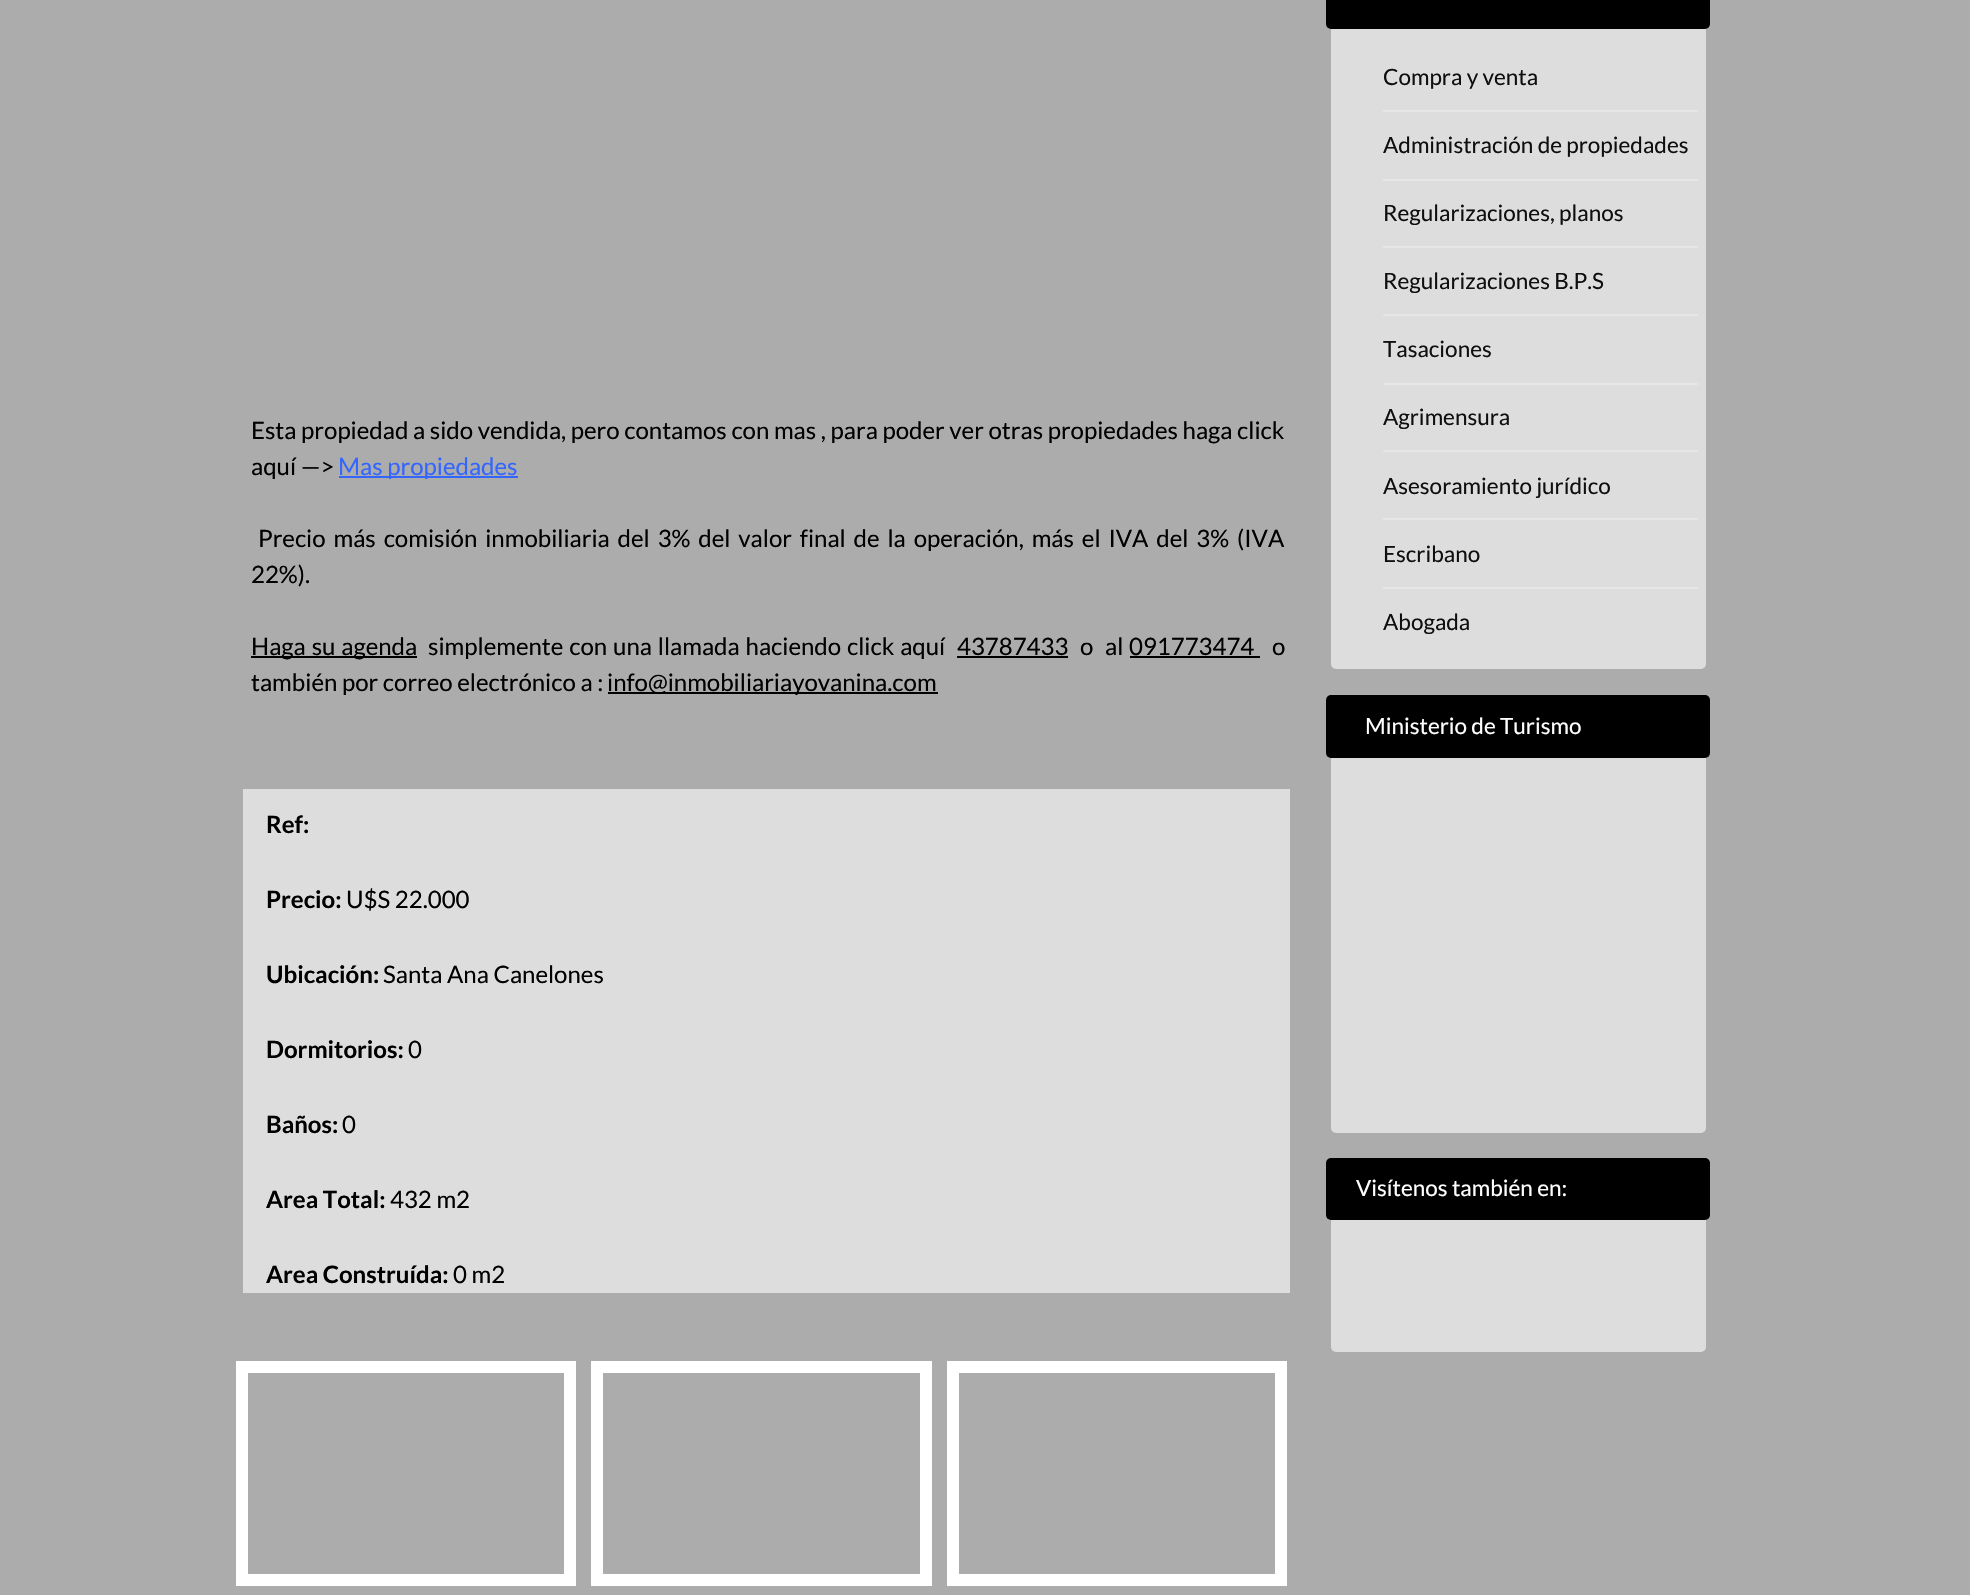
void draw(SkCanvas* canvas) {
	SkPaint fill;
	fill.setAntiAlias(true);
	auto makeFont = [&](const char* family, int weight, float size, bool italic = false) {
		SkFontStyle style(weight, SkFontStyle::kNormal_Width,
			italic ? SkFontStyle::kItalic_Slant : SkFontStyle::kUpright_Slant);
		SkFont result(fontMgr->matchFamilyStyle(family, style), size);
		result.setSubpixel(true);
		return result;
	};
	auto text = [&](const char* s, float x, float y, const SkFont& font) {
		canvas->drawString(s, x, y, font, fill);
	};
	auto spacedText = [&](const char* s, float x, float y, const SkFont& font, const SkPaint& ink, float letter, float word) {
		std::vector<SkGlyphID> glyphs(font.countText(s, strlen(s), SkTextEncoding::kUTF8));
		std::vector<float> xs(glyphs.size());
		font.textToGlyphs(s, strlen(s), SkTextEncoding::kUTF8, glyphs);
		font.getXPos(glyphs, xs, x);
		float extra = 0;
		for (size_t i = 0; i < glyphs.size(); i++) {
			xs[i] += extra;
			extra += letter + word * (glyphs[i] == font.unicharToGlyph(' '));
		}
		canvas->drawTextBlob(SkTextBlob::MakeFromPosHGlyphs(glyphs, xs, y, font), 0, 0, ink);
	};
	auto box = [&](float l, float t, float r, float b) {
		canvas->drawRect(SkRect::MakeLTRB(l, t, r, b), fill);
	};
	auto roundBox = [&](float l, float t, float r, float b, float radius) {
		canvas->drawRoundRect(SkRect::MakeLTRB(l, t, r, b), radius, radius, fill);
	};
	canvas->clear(0xFFACACAC);
	fill.setColor(0xFF3366FF);
	box(339, 476, 518, 478);
	fill.setColor(0xFF000000);
	box(251, 656, 417, 658);
	box(957, 656, 1068, 658);
	box(1130, 656, 1260, 658);
	box(608, 692, 938, 694);
	fill.setColor(0xFFDDDDDD);
	box(243, 789, 1290, 1293);
	fill.setStyle(SkPaint::kStroke_Style);
	fill.setStrokeWidth(12);
	fill.setColor(0xFFFFFFFF);
	canvas->drawRect(SkRect::MakeLTRB(242, 1367, 570, 1580), fill);
	canvas->drawRect(SkRect::MakeLTRB(597, 1367, 926, 1580), fill);
	canvas->drawRect(SkRect::MakeLTRB(953, 1367, 1281, 1580), fill);
	fill.setStyle(SkPaint::kFill_Style);
	fill.setColor(0xFFDDDDDD);
	roundBox(1331, -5, 1706, 669, 5);
	fill.setColor(0xFF000000);
	roundBox(1326, -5, 1710, 29, 5);
	fill.setColor(0xFFE6E6E6);
	box(1383, 110, 1698, 112);
	box(1383, 179, 1698, 181);
	box(1383, 246, 1698, 248);
	box(1383, 314, 1698, 316);
	box(1383, 383, 1698, 385);
	box(1383, 450, 1698, 452);
	box(1383, 518, 1698, 520);
	box(1383, 587, 1698, 589);
	fill.setColor(0xFFDDDDDD);
	roundBox(1331, 714, 1706, 1133, 5);
	fill.setColor(0xFF000000);
	roundBox(1326, 695, 1710, 758, 5);
	fill.setColor(0xFFDDDDDD);
	roundBox(1331, 1178, 1706, 1352, 5);
	fill.setColor(0xFF000000);
	roundBox(1326, 1158, 1710, 1220, 5);
	auto font1 = makeFont("Lato", 400, 24);
	text("Esta propiedad a sido vendida, pero contamos con mas , para poder ver otras propiedades haga click", 251, 439, font1);
	text("aquí —>", 251, 475, font1);
	fill.setColor(0xFF3366FF);
	text("Mas propiedades", 338, 475, font1);
	fill.setColor(0xFF000000);
	spacedText("Precio más comisión inmobiliaria del 3% del valor final de la operación, más el IVA del 3% (IVA", 258, 547, font1, fill, 0, 3.25f);
	text("22%).", 251, 583, font1);
	spacedText("Haga su agenda", 251, 655, font1, fill, 0, 1.25f);
	spacedText("simplemente con una llamada haciendo click aquí", 428, 655, font1, fill, 0, 1.25f);
	text("43787433", 957, 655, font1);
	spacedText("o  al", 1080, 655, font1, fill, 0, 1.25f);
	text("091773474", 1129, 655, font1);
	text("o", 1272, 655, font1);
	text("también por correo electrónico a :", 251, 691, font1);
	text("info@inmobiliariayovanina.com", 607, 691, font1);
	auto font2 = makeFont("Lato", 700, 24);
	text("Ref:", 266, 833, font2);
	text("Precio:", 266, 908, font2);
	text("U$S 22.000", 346, 908, font1);
	text("Ubicación:", 266, 983, font2);
	text("Santa Ana Canelones", 383, 983, font1);
	text("Dormitorios:", 266, 1058, font2);
	text("0", 408, 1058, font1);
	text("Baños:", 266, 1133, font2);
	text("0", 342, 1133, font1);
	text("Area Total:", 266, 1208, font2);
	text("432 m2", 390, 1208, font1);
	text("Area Construída:", 266, 1283, font2);
	text("0 m2", 453, 1283, font1);
	auto font3 = makeFont("Lato", 400, 22.5f);
	fill.setColor(0xFF0F0F0F);
	text("Compra y venta", 1383, 85, font3);
	text("Administración de propiedades", 1383, 153, font3);
	text("Regularizaciones, planos", 1383, 221, font3);
	text("Regularizaciones B.P.S", 1383, 289, font3);
	text("Tasaciones", 1383, 357, font3);
	text("Agrimensura", 1383, 425, font3);
	text("Asesoramiento jurídico", 1383, 494, font3);
	text("Escribano", 1383, 562, font3);
	text("Abogada", 1383, 630, font3);
	fill.setColor(0xFFFFFFFF);
	text("Ministerio de Turismo", 1365, 734, font3);
	text("Visítenos también en:", 1356, 1196, font3);
}
